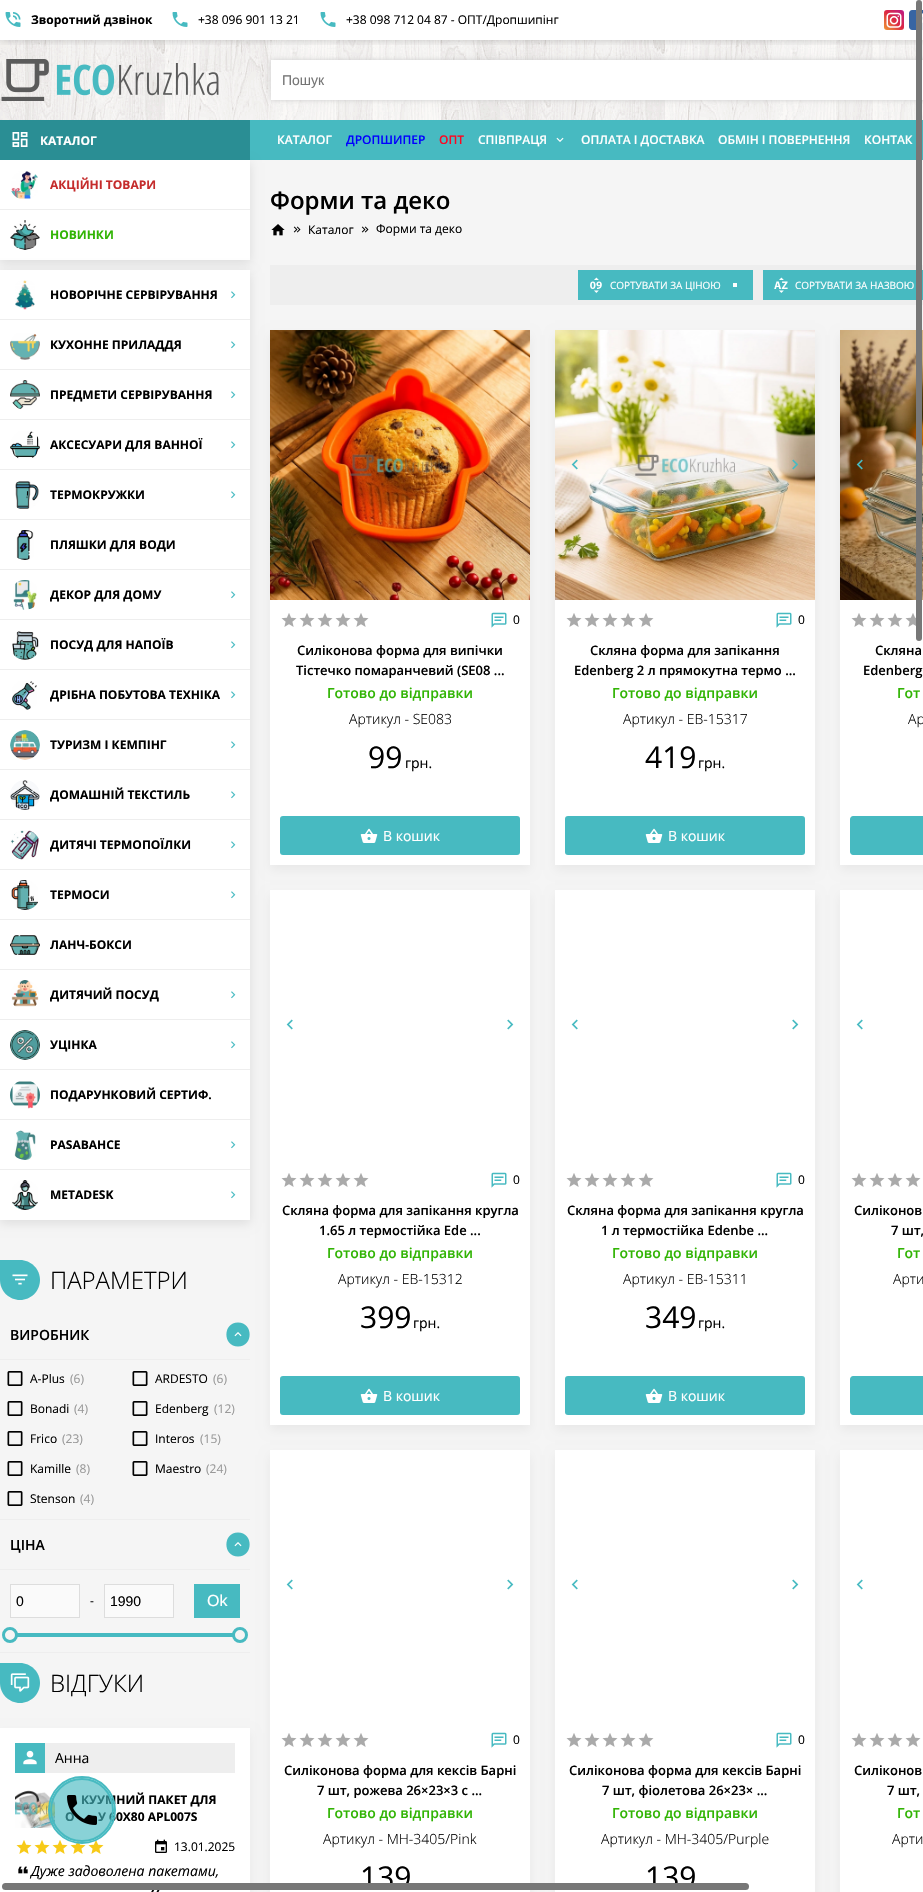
void draw(SkCanvas* canvas) {
	SkPaint fill;
	fill.setAntiAlias(true);
	auto makeFont = [&](const char* family, int weight, float size, bool italic = false) {
		SkFontStyle style(weight, SkFontStyle::kNormal_Width,
			italic ? SkFontStyle::kItalic_Slant : SkFontStyle::kUpright_Slant);
		SkFont result(fontMgr->matchFamilyStyle(family, style), size);
		result.setSubpixel(true);
		return result;
	};
	auto text = [&](const char* s, float x, float y, const SkFont& font) {
		canvas->drawString(s, x, y, font, fill);
	};
	auto box = [&](float l, float t, float r, float b) {
		canvas->drawRect(SkRect::MakeLTRB(l, t, r, b), fill);
	};
	auto roundBox = [&](float l, float t, float r, float b, float radius) {
		canvas->drawRoundRect(SkRect::MakeLTRB(l, t, r, b), radius, radius, fill);
	};
	auto picture = [&](const char* path, float l, float t, float r, float b) {
		auto image = SkImages::DeferredFromEncodedData(SkData::MakeFromFileName(path));
		canvas->drawImageRect(image, SkRect::MakeLTRB(l, t, r, b), SkSamplingOptions());
	};
	canvas->clear(0xFFFFFFFF);
	picture("image4.png", 0, 40, 923, 120);
	canvas->save();
	canvas->clipRect(SkRect::MakeLTRB(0, 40, 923, 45));
	fill.setColor(0x33000000);
	fill.setMaskFilter(SkMaskFilter::MakeBlur(kNormal_SkBlurStyle, 4));
	canvas->drawRect(SkRect::MakeLTRB(0, 0, 923, 40), fill);
	fill.setMaskFilter(nullptr);
	canvas->restore();
	fill.setColor(0xFF3765A3);
	canvas->drawPath(SkPathBuilder().moveTo(912, 10).lineTo(923, 10).lineTo(923, 30).lineTo(912, 30).cubicTo(910.5f, 30, 909, 28.5f, 909, 27).lineTo(909, 13).cubicTo(909, 11.5f, 910.5f, 10, 912, 10).close().detach(), fill);
	fill.setColor(0xFFCCCCCC);
	fill.setMaskFilter(SkMaskFilter::MakeBlur(kNormal_SkBlurStyle, 2.5f));
	canvas->drawRect(SkRect::MakeLTRB(271, 60, 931, 100), fill);
	fill.setMaskFilter(nullptr);
	fill.setColor(0xFFFFFFFF);
	box(271, 60, 923, 100);
	fill.setColor(0xFF47BAC1);
	box(250, 120, 923, 160);
	fill.setColor(0xFFF5F5F5);
	box(0, 160, 923, 1892);
	fill.setColor(0xFFEEEEEE);
	box(270, 265, 923, 305);
	fill.setColor(0xFF47BAC1);
	box(763, 270, 923, 300);
	fill.setColor(0x0D000000);
	fill.setMaskFilter(SkMaskFilter::MakeBlur(kNormal_SkBlurStyle, 5));
	canvas->drawRect(SkRect::MakeLTRB(840, 335, 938, 870), fill);
	fill.setMaskFilter(nullptr);
	fill.setColor(0xFFFFFFFF);
	box(840, 600, 923, 865);
	picture("image52.png", 840, 330, 923, 600);
	fill.setColor(0xFF777777);
	roundBox(916, 0, 922, 641, 3);
	picture("image0.png", 5, 12, 21, 27);
	picture("image1.png", 172, 12, 188, 27);
	picture("image1.png", 320, 12, 336, 27);
	{
		const SkColor colors[] = {0xFFF09433, 0xFFE6683C, 0xFFDC2743, 0xFFCC2366, 0xFFBC1888};
		const float stops[] = {0, 0.25f, 0.5f, 0.75f, 1};
		const SkPoint ends[] = {{884, 30}, {904, 10}};
		fill.setShader(SkGradientShader::MakeLinear(ends, colors, stops, 5, SkTileMode::kClamp));
		fill.setAlpha(255);
	}
	roundBox(884, 10, 904, 30, 3);
	picture("image2.png", 886, 12, 902, 28);
	picture("image3.png", 922, 13, 923, 30);
	picture("image5.png", 1, 59, 219, 101);
	picture("image6.png", 556, 137, 564, 142);
	fill.setShader(nullptr);
	fill.setColor(0x1A000000);
	fill.setMaskFilter(SkMaskFilter::MakeBlur(kNormal_SkBlurStyle, 5));
	canvas->drawRect(SkRect::MakeLTRB(0, 163, 250, 263), fill);
	fill.setMaskFilter(nullptr);
	fill.setColor(0xFF2A8E94);
	box(0, 120, 250, 160);
	picture("image7.png", 12, 132, 28, 147);
	fill.setColor(0xFFFFFFFF);
	box(0, 160, 250, 260);
	picture("image8.png", 11, 171, 38, 199);
	fill.setColor(0xFFEEEEEE);
	box(0, 209, 250, 210);
	picture("image9.png", 10, 220, 40, 250);
	fill.setColor(0x1A000000);
	fill.setMaskFilter(SkMaskFilter::MakeBlur(kNormal_SkBlurStyle, 5));
	canvas->drawRect(SkRect::MakeLTRB(0, 273, 250, 1223), fill);
	fill.setMaskFilter(nullptr);
	fill.setColor(0xFFFFFFFF);
	box(0, 270, 250, 1220);
	picture("image10.png", 15, 280, 35, 310);
	fill.setColor(0xFFEEEEEE);
	box(0, 319, 250, 320);
	picture("image11.png", 231, 291, 236, 299);
	picture("image12.png", 10, 333, 40, 360);
	box(0, 369, 250, 370);
	picture("image11.png", 231, 341, 236, 349);
	picture("image13.png", 10, 380, 40, 410);
	box(0, 419, 250, 420);
	picture("image11.png", 231, 391, 236, 399);
	picture("image14.png", 10, 431, 40, 459);
	box(0, 469, 250, 470);
	picture("image11.png", 231, 441, 236, 449);
	picture("image15.png", 15, 481, 39, 509);
	box(0, 519, 250, 520);
	picture("image11.png", 231, 491, 236, 499);
	picture("image16.png", 16, 530, 34, 560);
	box(0, 569, 250, 570);
	picture("image17.png", 13, 580, 37, 610);
	box(0, 619, 250, 620);
	picture("image11.png", 231, 591, 236, 599);
	picture("image18.png", 12, 631, 39, 660);
	box(0, 669, 250, 670);
	picture("image11.png", 231, 641, 236, 649);
	picture("image19.png", 12, 681, 37, 710);
	box(0, 719, 250, 720);
	picture("image11.png", 231, 691, 236, 699);
	picture("image20.png", 10, 730, 40, 760);
	box(0, 769, 250, 770);
	picture("image11.png", 231, 741, 236, 749);
	picture("image21.png", 10, 780, 40, 810);
	box(0, 819, 250, 820);
	picture("image11.png", 231, 791, 236, 799);
	picture("image22.png", 10, 830, 39, 860);
	box(0, 869, 250, 870);
	picture("image11.png", 231, 841, 236, 849);
	picture("image23.png", 11, 880, 38, 910);
	box(0, 919, 250, 920);
	picture("image11.png", 231, 891, 236, 899);
	picture("image24.png", 10, 935, 40, 955);
	box(0, 969, 250, 970);
	picture("image25.png", 11, 980, 39, 1007);
	box(0, 1019, 250, 1020);
	picture("image11.png", 231, 991, 236, 999);
	picture("image26.png", 10, 1030, 40, 1060);
	box(0, 1069, 250, 1070);
	picture("image11.png", 231, 1041, 236, 1049);
	picture("image27.png", 10, 1081, 40, 1109);
	box(0, 1119, 250, 1120);
	picture("image28.png", 14, 1130, 36, 1160);
	box(0, 1169, 250, 1170);
	picture("image11.png", 231, 1141, 236, 1149);
	picture("image29.png", 12, 1180, 38, 1210);
	picture("image11.png", 231, 1191, 236, 1199);
	fill.setColor(0xFF47BAC1);
	canvas->drawPath(SkPathBuilder().moveTo(0, 1260).lineTo(20, 1260).cubicTo(31, 1260, 40, 1269, 40, 1280).cubicTo(40, 1291, 31, 1300, 20, 1300).cubicTo(9, 1300, 0, 1291, 0, 1280).close().detach(), fill);
	picture("image30.png", 12, 1274, 28, 1285);
	fill.setColor(0xFFEEEEEE);
	box(0, 1359, 250, 1360);
	fill.setColor(0xFF47BAC1);
	canvas->drawPath(SkPathBuilder().moveTo(238, 1346.5f).cubicTo(222.5f, 1346.5f, 222.5f, 1322.5f, 238, 1322.5f).cubicTo(253.5f, 1322.5f, 253.5f, 1346.5f, 238, 1346.5f).close().detach(), fill);
	picture("image31.png", 234, 1332, 242, 1337);
	fill.setColor(0xFFEEEEEE);
	box(0, 1519, 250, 1520);
	picture("image32.png", 7, 1371, 23, 1386);
	picture("image32.png", 132, 1371, 148, 1386);
	picture("image32.png", 7, 1401, 23, 1416);
	picture("image32.png", 132, 1401, 148, 1416);
	picture("image32.png", 7, 1431, 23, 1446);
	picture("image32.png", 132, 1431, 148, 1446);
	picture("image32.png", 7, 1461, 23, 1476);
	picture("image32.png", 132, 1461, 148, 1476);
	picture("image32.png", 7, 1491, 23, 1506);
	box(0, 1569, 250, 1570);
	fill.setColor(0xFF47BAC1);
	canvas->drawPath(SkPathBuilder().moveTo(238, 1556.5f).cubicTo(222.5f, 1556.5f, 222.5f, 1532.5f, 238, 1532.5f).cubicTo(253.5f, 1532.5f, 253.5f, 1556.5f, 238, 1556.5f).close().detach(), fill);
	picture("image31.png", 234, 1542, 242, 1547);
	fill.setColor(0xFFEEEEEE);
	box(0, 1652, 250, 1653);
	fill.setColor(0xFFFAFAFA);
	canvas->drawRect(SkRect::MakeLTRB(10.5f, 1584.5f, 79.5f, 1617.5f), fill);
	fill.setStyle(SkPaint::kStroke_Style);
	fill.setStrokeWidth(1);
	fill.setColor(0xFFDDDDDD);
	canvas->drawRect(SkRect::MakeLTRB(10.5f, 1584.5f, 79.5f, 1617.5f), fill);
	fill.setStyle(SkPaint::kFill_Style);
	fill.setColor(0xFFFAFAFA);
	canvas->drawRect(SkRect::MakeLTRB(104.5f, 1584.5f, 173.5f, 1617.5f), fill);
	fill.setStyle(SkPaint::kStroke_Style);
	fill.setColor(0xFFDDDDDD);
	canvas->drawRect(SkRect::MakeLTRB(104.5f, 1584.5f, 173.5f, 1617.5f), fill);
	fill.setStyle(SkPaint::kFill_Style);
	fill.setColor(0xFF47BAC1);
	box(194, 1584, 240, 1618);
	box(10, 1633, 240, 1637);
	fill.setColor(0xFFF5F5F5);
	canvas->drawCircle(10, 1635, 6.5f, fill);
	fill.setStyle(SkPaint::kStroke_Style);
	fill.setStrokeWidth(3);
	fill.setColor(0xFF47BAC1);
	canvas->drawCircle(10, 1635, 6.5f, fill);
	fill.setStyle(SkPaint::kFill_Style);
	fill.setColor(0xFFF5F5F5);
	canvas->drawCircle(240, 1635, 6.5f, fill);
	fill.setStyle(SkPaint::kStroke_Style);
	fill.setColor(0xFF47BAC1);
	canvas->drawCircle(240, 1635, 6.5f, fill);
	fill.setStyle(SkPaint::kFill_Style);
	canvas->drawPath(SkPathBuilder().moveTo(0, 1663).lineTo(20, 1663).cubicTo(31, 1663, 40, 1672, 40, 1683).cubicTo(40, 1694, 31, 1703, 20, 1703).cubicTo(9, 1703, 0, 1694, 0, 1683).close().detach(), fill);
	picture("image33.png", 10, 1673, 30, 1692);
	fill.setColor(0x0D000000);
	fill.setMaskFilter(SkMaskFilter::MakeBlur(kNormal_SkBlurStyle, 5));
	canvas->drawRect(SkRect::MakeLTRB(0, 1733, 250, 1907), fill);
	fill.setMaskFilter(nullptr);
	fill.setColor(0xFFFFFFFF);
	box(0, 1728, 250, 1892);
	fill.setColor(0xFFEEEEEE);
	box(45, 1743, 235, 1773);
	fill.setColor(0xFF47BAC1);
	box(15, 1743, 45, 1773);
	picture("image34.png", 23, 1750, 37, 1765);
	picture("image35.png", 15, 1790, 55, 1828);
	picture("image36.png", 16, 1840, 32, 1854);
	picture("image36.png", 34, 1840, 50, 1854);
	picture("image36.png", 52, 1840, 68, 1854);
	picture("image37.png", 70, 1841, 86, 1854);
	picture("image36.png", 88, 1840, 104, 1854);
	picture("image38.png", 155, 1839, 167, 1853);
	picture("image39.png", 18, 1866, 28, 1874);
	picture("image40.png", 151, 1890, 160, 1892);
	picture("image41.png", 271, 224, 285, 236);
	picture("image42.png", 293, 226, 301, 233);
	picture("image42.png", 361, 226, 369, 233);
	box(578, 270, 753, 300);
	picture("image43.png", 590, 277, 602, 293);
	fill.setColor(0xFFFDFEFE);
	box(733, 283, 737, 287);
	picture("image44.png", 774, 277, 788, 293);
	fill.setColor(0x0D000000);
	fill.setMaskFilter(SkMaskFilter::MakeBlur(kNormal_SkBlurStyle, 5));
	canvas->drawRect(SkRect::MakeLTRB(270, 335, 530, 870), fill);
	fill.setMaskFilter(nullptr);
	fill.setColor(0xFFFFFFFF);
	box(270, 600, 530, 865);
	picture("image45.png", 270, 330, 530, 600);
	picture("image46.png", 281, 613, 297, 627);
	picture("image46.png", 299, 613, 315, 627);
	picture("image46.png", 317, 613, 333, 627);
	picture("image46.png", 335, 613, 351, 627);
	picture("image46.png", 353, 613, 369, 627);
	picture("image47.png", 491, 612, 507, 628);
	fill.setColor(0xFF47BAC1);
	roundBox(280, 816, 520, 855, 3);
	picture("image48.png", 360, 828, 378, 843);
	fill.setColor(0x0D000000);
	fill.setMaskFilter(SkMaskFilter::MakeBlur(kNormal_SkBlurStyle, 5));
	canvas->drawRect(SkRect::MakeLTRB(555, 335, 815, 870), fill);
	fill.setMaskFilter(nullptr);
	fill.setColor(0xFFFFFFFF);
	box(555, 600, 815, 865);
	picture("image49.png", 555, 330, 815, 600);
	picture("image50.png", 571, 459, 578, 470);
	picture("image51.png", 792, 459, 799, 470);
	picture("image46.png", 566, 613, 582, 627);
	picture("image46.png", 584, 613, 600, 627);
	picture("image46.png", 602, 613, 618, 627);
	picture("image46.png", 620, 613, 636, 627);
	picture("image46.png", 638, 613, 654, 627);
	picture("image47.png", 776, 612, 792, 628);
	fill.setColor(0xFF47BAC1);
	roundBox(565, 816, 805, 855, 3);
	picture("image48.png", 645, 828, 663, 843);
	picture("image53.png", 856, 459, 863, 470);
	picture("image46.png", 851, 613, 867, 627);
	picture("image46.png", 869, 613, 885, 627);
	picture("image46.png", 887, 613, 903, 627);
	picture("image54.png", 905, 613, 916, 627);
	canvas->drawPath(SkPathBuilder().moveTo(853, 816).lineTo(923, 816).lineTo(923, 855).lineTo(853, 855).cubicTo(851.5f, 855, 850, 853.5f, 850, 852).lineTo(850, 819).cubicTo(850, 817.5f, 851.5f, 816, 853, 816).close().detach(), fill);
	fill.setColor(0x0D000000);
	fill.setMaskFilter(SkMaskFilter::MakeBlur(kNormal_SkBlurStyle, 5));
	canvas->drawRect(SkRect::MakeLTRB(270, 895, 530, 1430), fill);
	fill.setMaskFilter(nullptr);
	fill.setColor(0xFFFFFFFF);
	box(270, 890, 530, 1425);
	picture("image55.png", 286, 1019, 293, 1030);
	picture("image56.png", 507, 1019, 514, 1030);
	picture("image46.png", 281, 1173, 297, 1187);
	picture("image46.png", 299, 1173, 315, 1187);
	picture("image46.png", 317, 1173, 333, 1187);
	picture("image46.png", 335, 1173, 351, 1187);
	picture("image46.png", 353, 1173, 369, 1187);
	picture("image47.png", 491, 1172, 507, 1188);
	fill.setColor(0xFF47BAC1);
	roundBox(280, 1376, 520, 1415, 3);
	picture("image48.png", 360, 1388, 378, 1403);
	fill.setColor(0x0D000000);
	fill.setMaskFilter(SkMaskFilter::MakeBlur(kNormal_SkBlurStyle, 5));
	canvas->drawRect(SkRect::MakeLTRB(555, 895, 815, 1430), fill);
	fill.setMaskFilter(nullptr);
	fill.setColor(0xFFFFFFFF);
	box(555, 890, 815, 1425);
	picture("image55.png", 571, 1019, 578, 1030);
	picture("image56.png", 792, 1019, 799, 1030);
	picture("image46.png", 566, 1173, 582, 1187);
	picture("image46.png", 584, 1173, 600, 1187);
	picture("image46.png", 602, 1173, 618, 1187);
	picture("image46.png", 620, 1173, 636, 1187);
	picture("image46.png", 638, 1173, 654, 1187);
	picture("image47.png", 776, 1172, 792, 1188);
	fill.setColor(0xFF47BAC1);
	roundBox(565, 1376, 805, 1415, 3);
	picture("image48.png", 645, 1388, 663, 1403);
	fill.setColor(0x0D000000);
	fill.setMaskFilter(SkMaskFilter::MakeBlur(kNormal_SkBlurStyle, 5));
	canvas->drawRect(SkRect::MakeLTRB(840, 895, 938, 1430), fill);
	fill.setMaskFilter(nullptr);
	fill.setColor(0xFFFFFFFF);
	box(840, 890, 923, 1425);
	picture("image55.png", 856, 1019, 863, 1030);
	picture("image46.png", 851, 1173, 867, 1187);
	picture("image46.png", 869, 1173, 885, 1187);
	picture("image46.png", 887, 1173, 903, 1187);
	picture("image46.png", 905, 1173, 921, 1187);
	fill.setColor(0xFF47BAC1);
	canvas->drawPath(SkPathBuilder().moveTo(853, 1376).lineTo(923, 1376).lineTo(923, 1415).lineTo(853, 1415).cubicTo(851.5f, 1415, 850, 1413.5f, 850, 1412).lineTo(850, 1379).cubicTo(850, 1377.5f, 851.5f, 1376, 853, 1376).close().detach(), fill);
	fill.setColor(0x0D000000);
	fill.setMaskFilter(SkMaskFilter::MakeBlur(kNormal_SkBlurStyle, 5));
	canvas->drawRect(SkRect::MakeLTRB(270, 1455, 530, 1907), fill);
	fill.setMaskFilter(nullptr);
	fill.setColor(0xFFFFFFFF);
	box(270, 1450, 530, 1892);
	picture("image55.png", 286, 1579, 293, 1590);
	picture("image56.png", 507, 1579, 514, 1590);
	picture("image46.png", 281, 1733, 297, 1747);
	picture("image46.png", 299, 1733, 315, 1747);
	picture("image46.png", 317, 1733, 333, 1747);
	picture("image46.png", 335, 1733, 351, 1747);
	picture("image46.png", 353, 1733, 369, 1747);
	picture("image47.png", 491, 1732, 507, 1748);
	fill.setColor(0x0D000000);
	fill.setMaskFilter(SkMaskFilter::MakeBlur(kNormal_SkBlurStyle, 5));
	canvas->drawRect(SkRect::MakeLTRB(555, 1455, 815, 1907), fill);
	fill.setMaskFilter(nullptr);
	fill.setColor(0xFFFFFFFF);
	box(555, 1450, 815, 1892);
	picture("image55.png", 571, 1579, 578, 1590);
	picture("image56.png", 792, 1579, 799, 1590);
	picture("image46.png", 566, 1733, 582, 1747);
	picture("image46.png", 584, 1733, 600, 1747);
	picture("image46.png", 602, 1733, 618, 1747);
	picture("image46.png", 620, 1733, 636, 1747);
	picture("image46.png", 638, 1733, 654, 1747);
	picture("image47.png", 776, 1732, 792, 1748);
	fill.setColor(0x0D000000);
	fill.setMaskFilter(SkMaskFilter::MakeBlur(kNormal_SkBlurStyle, 5));
	canvas->drawRect(SkRect::MakeLTRB(840, 1455, 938, 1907), fill);
	fill.setMaskFilter(nullptr);
	fill.setColor(0xFFFFFFFF);
	box(840, 1450, 923, 1892);
	picture("image55.png", 856, 1579, 863, 1590);
	picture("image46.png", 851, 1733, 867, 1747);
	picture("image46.png", 869, 1733, 885, 1747);
	picture("image46.png", 887, 1733, 903, 1747);
	picture("image46.png", 905, 1733, 921, 1747);
	auto font1 = makeFont("Open Sans", 700, 12);
	fill.setColor(0xFF000000);
	text("Зворотний дзвінок", 31, 24, font1);
	auto font2 = makeFont("Open Sans", 400, 12);
	text("+38 096 901 13 21", 198, 24, font2);
	text("+38 098 712 04 87 - ОПТ/Дропшипінг", 346, 24, font2);
	auto font3 = makeFont("Liberation Sans", 400, 14);
	fill.setColor(0xFF757575);
	text("Пошук", 282, 85, font3);
	auto font4 = makeFont("Open Sans", 600, 12);
	fill.setColor(0xFFFFFFFF);
	text("КАТАЛОГ", 277, 144, font4);
	fill.setColor(0xFF0100FF);
	text("ДРОПШИПЕР", 346, 144, font4);
	fill.setColor(0xFFFC0722);
	text("ОПТ", 439, 144, font4);
	fill.setColor(0xFFFFFFFF);
	text("СПІВПРАЦЯ", 478, 144, font4);
	text("ОПЛАТА І ДОСТАВКА", 581, 144, font4);
	text("ОБМІН І ПОВЕРНЕННЯ", 718, 144, font4);
	text("КОНТАК", 864, 144, font4);
	text("КАТАЛОГ", 40, 145, font1);
	fill.setColor(0xFFC52C2C);
	text("АКЦІЙНІ ТОВАРИ", 50, 189, font1);
	fill.setColor(0xFF31B404);
	text("НОВИНКИ", 50, 239, font1);
	fill.setColor(0xFF000000);
	text("НОВОРІЧНЕ СЕРВІРУВАННЯ", 50, 299, font1);
	text("КУХОННЕ ПРИЛАДДЯ", 50, 349, font1);
	text("ПРЕДМЕТИ СЕРВІРУВАННЯ", 50, 399, font1);
	text("АКСЕСУАРИ ДЛЯ ВАННОЇ", 50, 449, font1);
	text("ТЕРМОКРУЖКИ", 50, 499, font1);
	text("ПЛЯШКИ ДЛЯ ВОДИ", 50, 549, font1);
	text("ДЕКОР ДЛЯ ДОМУ", 50, 599, font1);
	text("ПОСУД ДЛЯ НАПОЇВ", 50, 649, font1);
	text("ДРІБНА ПОБУТОВА ТЕХНІКА", 50, 699, font1);
	text("ТУРИЗМ І КЕМПІНГ", 50, 749, font1);
	text("ДОМАШНІЙ ТЕКСТИЛЬ", 50, 799, font1);
	text("ДИТЯЧІ ТЕРМОПОЇЛКИ", 50, 849, font1);
	text("ТЕРМОСИ", 50, 899, font1);
	text("ЛАНЧ-БОКСИ", 50, 949, font1);
	text("ДИТЯЧИЙ ПОСУД", 50, 999, font1);
	text("УЦІНКА", 50, 1049, font1);
	text("ПОДАРУНКОВИЙ СЕРТИФ.", 50, 1099, font1);
	text("PASABAHCE", 50, 1149, font1);
	text("МETADESK", 50, 1199, font1);
	auto font5 = makeFont("Open Sans", 300, 24);
	text("ПАРАМЕТРИ", 50, 1289, font5);
	auto font6 = makeFont("Open Sans", 600, 14);
	text("ВИРОБНИК", 10, 1340, font6);
	text("A-Plus", 30, 1383, font2);
	fill.setColor(0xFF999999);
	text("(6)", 70, 1383, font2);
	fill.setColor(0xFF000000);
	text("ARDESTO", 155, 1383, font2);
	fill.setColor(0xFF999999);
	text("(6)", 213, 1383, font2);
	fill.setColor(0xFF000000);
	text("Bonadi", 30, 1413, font2);
	fill.setColor(0xFF999999);
	text("(4)", 74, 1413, font2);
	fill.setColor(0xFF000000);
	text("Edenberg", 155, 1413, font2);
	fill.setColor(0xFF999999);
	text("(12)", 214, 1413, font2);
	fill.setColor(0xFF000000);
	text("Frico", 30, 1443, font2);
	fill.setColor(0xFF999999);
	text("(23)", 62, 1443, font2);
	fill.setColor(0xFF000000);
	text("Interos", 155, 1443, font2);
	fill.setColor(0xFF999999);
	text("(15)", 200, 1443, font2);
	fill.setColor(0xFF000000);
	text("Kamille", 30, 1473, font2);
	fill.setColor(0xFF999999);
	text("(8)", 76, 1473, font2);
	fill.setColor(0xFF000000);
	text("Maestro", 155, 1473, font2);
	fill.setColor(0xFF999999);
	text("(24)", 206, 1473, font2);
	fill.setColor(0xFF000000);
	text("Stenson", 30, 1503, font2);
	fill.setColor(0xFF999999);
	text("(4)", 80, 1503, font2);
	fill.setColor(0xFF000000);
	text("ЦІНА", 10, 1550, font6);
	text("0", 16, 1606, font3);
	text("-", 90, 1605, font2);
	text("1990", 110, 1606, font3);
	auto font7 = makeFont("Liberation Sans", 400, 16);
	fill.setColor(0xFFFFFFFF);
	text("Ok", 207, 1606, font7);
	fill.setColor(0xFF000000);
	text("ВІДГУКИ", 50, 1692, font5);
	auto font8 = makeFont("Open Sans", 400, 14);
	text("Анна", 55, 1763, font8);
	text("КУУМНИЙ ПАКЕТ ДЛЯ", 81, 1804, font1);
	text("О", 65, 1821, font1);
	text("У 60Х80 APL007S", 98, 1821, font1);
	text("13.01.2025", 174, 1851, font2);
	auto font9 = makeFont("Open Sans", 400, 14, true);
	text("Дуже задоволена пакетами,", 31, 1876, font9);
	auto font10 = makeFont("Open Sans", 600, 24);
	text("Форми та деко", 270, 209, font10);
	text("Каталог", 308, 234, font2);
	text("Форми та деко", 376, 233, font2);
	auto font11 = makeFont("Open Sans", 400, 10);
	fill.setColor(0xFFFFFFFF);
	text("СОРТУВАТИ ЗА ЦІНОЮ", 610, 289, font11);
	text("СОРТУВАТИ ЗА НАЗВОЮ", 795, 289, font11);
	fill.setColor(0xFF000000);
	text("0", 513, 624, font2);
	auto font12 = makeFont("Open Sans", 600, 13);
	text("Силіконова форма для випічки", 297, 655, font12);
	text("Тістечко помаранчевий (SE08 ...", 296, 675, font12);
	fill.setColor(0xFF31B404);
	text("Готово до відправки", 327, 698, font6);
	auto font13 = makeFont("Open Sans", 300, 14);
	fill.setColor(0xFF000000);
	text("Артикул - SE083", 349, 724, font13);
	auto font14 = makeFont("Open Sans", 400, 30);
	text("99", 368, 768, font14);
	text("грн.", 405, 768, font8);
	fill.setColor(0xFFFFFFFF);
	text("В кошик", 383, 841, font8);
	fill.setColor(0xFF000000);
	text("0", 798, 624, font2);
	text("Скляна форма для запікання", 590, 655, font12);
	text("Edenberg 2 л прямокутна термо ...", 574, 675, font12);
	fill.setColor(0xFF31B404);
	text("Готово до відправки", 612, 698, font6);
	fill.setColor(0xFF000000);
	text("Артикул - EB-15317", 623, 724, font13);
	text("419", 645, 768, font14);
	text("грн.", 698, 768, font8);
	fill.setColor(0xFFFFFFFF);
	text("В кошик", 668, 841, font8);
	fill.setColor(0xFF000000);
	text("Скляна", 875, 655, font12);
	text("Edenberg", 863, 675, font12);
	fill.setColor(0xFF31B404);
	text("Гот", 897, 698, font6);
	fill.setColor(0xFF000000);
	text("Ар", 908, 724, font13);
	text("0", 513, 1184, font2);
	text("Скляна форма для запікання кругла", 282, 1215, font12);
	text("1.65 л термостійка Ede ...", 319, 1235, font12);
	fill.setColor(0xFF31B404);
	text("Готово до відправки", 327, 1258, font6);
	fill.setColor(0xFF000000);
	text("Артикул - EB-15312", 338, 1284, font13);
	text("399", 360, 1328, font14);
	text("грн.", 413, 1328, font8);
	fill.setColor(0xFFFFFFFF);
	text("В кошик", 383, 1401, font8);
	fill.setColor(0xFF000000);
	text("0", 798, 1184, font2);
	text("Скляна форма для запікання кругла", 567, 1215, font12);
	text("1 л термостійка Edenbe ...", 601, 1235, font12);
	fill.setColor(0xFF31B404);
	text("Готово до відправки", 612, 1258, font6);
	fill.setColor(0xFF000000);
	text("Артикул - EB-15311", 623, 1284, font13);
	text("349", 645, 1328, font14);
	text("грн.", 698, 1328, font8);
	fill.setColor(0xFFFFFFFF);
	text("В кошик", 668, 1401, font8);
	fill.setColor(0xFF000000);
	text("Силіконов", 854, 1215, font12);
	text("7 шт,", 891, 1235, font12);
	fill.setColor(0xFF31B404);
	text("Гот", 897, 1258, font6);
	fill.setColor(0xFF000000);
	text("Арти", 893, 1284, font13);
	text("0", 513, 1744, font2);
	text("Силіконова форма для кексів Барні", 284, 1775, font12);
	text("7 шт, рожева 26×23×3 с ...", 317, 1795, font12);
	fill.setColor(0xFF31B404);
	text("Готово до відправки", 327, 1818, font6);
	fill.setColor(0xFF000000);
	text("Артикул - MH-3405/Pink", 323, 1844, font13);
	text("139", 360, 1888, font14);
	text("0", 798, 1744, font2);
	text("Силіконова форма для кексів Барні", 569, 1775, font12);
	text("7 шт, фіолетова 26×23× ...", 602, 1795, font12);
	fill.setColor(0xFF31B404);
	text("Готово до відправки", 612, 1818, font6);
	fill.setColor(0xFF000000);
	text("Артикул - MH-3405/Purple", 601, 1844, font13);
	text("139", 645, 1888, font14);
	text("Силіконов", 854, 1775, font12);
	text("7 шт,", 887, 1795, font12);
	fill.setColor(0xFF31B404);
	text("Гот", 897, 1818, font6);
	fill.setColor(0xFF000000);
	text("Арти", 892, 1844, font13);
	fill.setStyle(SkPaint::kStroke_Style);
	fill.setStrokeWidth(2);
	fill.setColor(0xFF47BAC1);
	canvas->drawCircle(82, 1810, 33, fill);
	fill.setStyle(SkPaint::kFill_Style);
	fill.setColor(0x6647BAC1);
	canvas->drawCircle(82, 1810, 32, fill);
	canvas->drawCircle(82, 1810, 31, fill);
	fill.setStyle(SkPaint::kStroke_Style);
	fill.setColor(0xFF47BAC1);
	canvas->drawCircle(82, 1810, 31, fill);
	picture("image57.png", 67, 1795, 97, 1825);
	fill.setStyle(SkPaint::kFill_Style);
	fill.setColor(0xFF777777);
	roundBox(2, 1883, 749, 1890, 3.5f);
}
